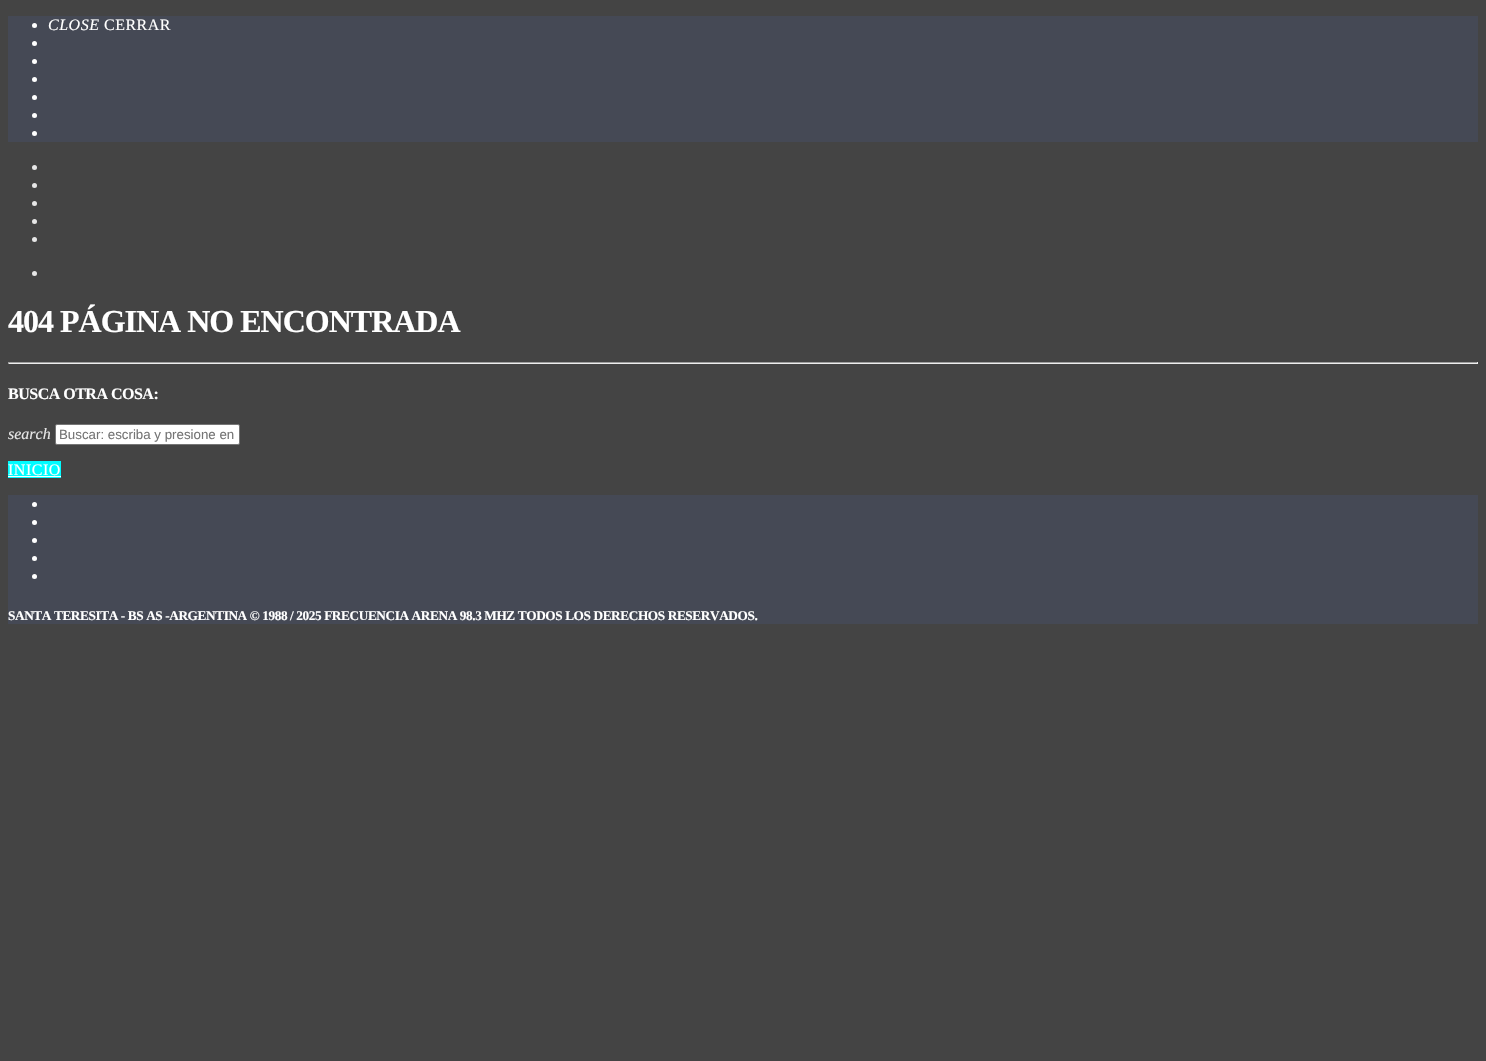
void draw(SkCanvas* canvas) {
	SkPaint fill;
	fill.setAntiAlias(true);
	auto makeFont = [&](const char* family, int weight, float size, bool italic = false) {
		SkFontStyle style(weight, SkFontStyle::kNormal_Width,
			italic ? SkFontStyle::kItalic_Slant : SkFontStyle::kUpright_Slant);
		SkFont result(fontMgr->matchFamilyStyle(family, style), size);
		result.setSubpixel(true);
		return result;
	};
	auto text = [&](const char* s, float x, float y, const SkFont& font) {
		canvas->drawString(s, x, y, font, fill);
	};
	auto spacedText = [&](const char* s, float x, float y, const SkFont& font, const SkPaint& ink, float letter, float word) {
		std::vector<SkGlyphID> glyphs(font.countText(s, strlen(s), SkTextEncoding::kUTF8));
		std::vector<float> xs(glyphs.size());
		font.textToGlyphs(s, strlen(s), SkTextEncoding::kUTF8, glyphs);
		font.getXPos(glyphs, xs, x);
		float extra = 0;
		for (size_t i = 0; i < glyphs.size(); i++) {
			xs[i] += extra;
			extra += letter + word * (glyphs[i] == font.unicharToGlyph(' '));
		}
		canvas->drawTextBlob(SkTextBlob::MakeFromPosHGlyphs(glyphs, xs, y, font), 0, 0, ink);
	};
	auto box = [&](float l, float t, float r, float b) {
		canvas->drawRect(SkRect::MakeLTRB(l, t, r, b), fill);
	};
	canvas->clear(0xFF444444);
	fill.setColor(0xFF454955);
	box(8, 16, 1478, 142);
	fill.setColor(0xFFFFFFFF);
	canvas->drawCircle(34.5f, 25.5f, 2.5f, fill);
	canvas->drawCircle(34.5f, 43.5f, 2.5f, fill);
	canvas->drawCircle(34.5f, 61.5f, 2.5f, fill);
	canvas->drawCircle(34.5f, 79.5f, 2.5f, fill);
	canvas->drawCircle(34.5f, 97.5f, 2.5f, fill);
	canvas->drawCircle(34.5f, 115.5f, 2.5f, fill);
	canvas->drawCircle(34.5f, 133.5f, 2.5f, fill);
	fill.setColor(0xFFE7E7E7);
	canvas->drawCircle(34.5f, 167.5f, 2.5f, fill);
	canvas->drawCircle(34.5f, 185.5f, 2.5f, fill);
	canvas->drawCircle(34.5f, 203.5f, 2.5f, fill);
	canvas->drawCircle(34.5f, 221.5f, 2.5f, fill);
	canvas->drawCircle(34.5f, 239.5f, 2.5f, fill);
	canvas->drawCircle(34.5f, 273.5f, 2.5f, fill);
	fill.setColor(0xFF9F9F9F);
	box(8, 362, 1478, 363);
	fill.setColor(0xFFEEEEEE);
	box(1477, 362, 1478, 364);
	box(8, 363, 1478, 364);
	fill.setColor(0xFF9F9F9F);
	box(8, 362, 9, 364);
	fill.setColor(0xFFFFFFFF);
	canvas->drawRoundRect(SkRect::MakeLTRB(55.5f, 424.5f, 239.5f, 444.5f), 1.5f, 1.5f, fill);
	fill.setStyle(SkPaint::kStroke_Style);
	fill.setStrokeWidth(1);
	fill.setColor(0xFF767676);
	canvas->drawRoundRect(SkRect::MakeLTRB(55.5f, 424.5f, 239.5f, 444.5f), 1.5f, 1.5f, fill);
	fill.setStyle(SkPaint::kFill_Style);
	fill.setColor(0xFF00FCFF);
	box(8, 461, 61, 478);
	fill.setColor(0xFFFFFFFF);
	box(8, 476, 61, 477);
	fill.setColor(0xFF454955);
	box(8, 495, 1478, 624);
	fill.setColor(0xFFFFFFFF);
	canvas->drawCircle(34.5f, 504.5f, 2.5f, fill);
	canvas->drawCircle(34.5f, 522.5f, 2.5f, fill);
	canvas->drawCircle(34.5f, 540.5f, 2.5f, fill);
	canvas->drawCircle(34.5f, 558.5f, 2.5f, fill);
	canvas->drawCircle(34.5f, 576.5f, 2.5f, fill);
	auto font1 = makeFont("Liberation Serif", 400, 16, true);
	spacedText("CLOSE", 48, 30, font1, fill, 0.5f, 0);
	auto font2 = makeFont("Liberation Serif", 400, 16);
	spacedText("CERRAR", 104, 30, font2, fill, 0.5f, 0);
	auto font3 = makeFont("Liberation Serif", 700, 32);
	spacedText("404 PÁGINA NO ENCONTRADA", 8, 332, font3, fill, -1, 0);
	auto font4 = makeFont("Liberation Serif", 700, 16);
	spacedText("BUSCA OTRA COSA:", 8, 399, font4, fill, -0.5f, 0);
	fill.setColor(0xFFE7E7E7);
	text("search", 8, 439, font1);
	auto font5 = makeFont("Liberation Sans", 400, 13.3f);
	fill.setColor(0xFF757575);
	text("Buscar: escriba y presione en", 59, 439, font5);
	fill.setColor(0xFFFFFFFF);
	spacedText("INICIO", 8, 475, font2, fill, 0.5f, 0);
	auto font6 = makeFont("Liberation Serif", 700, 13.28f);
	spacedText("SANTA TERESITA - BS AS -ARGENTINA © 1988 / 2025 FRECUENCIA ARENA 98.3 MHZ TODOS LOS DERECHOS RESERVADOS.", 8, 620, font6, fill, -0.4f, 0);
}
